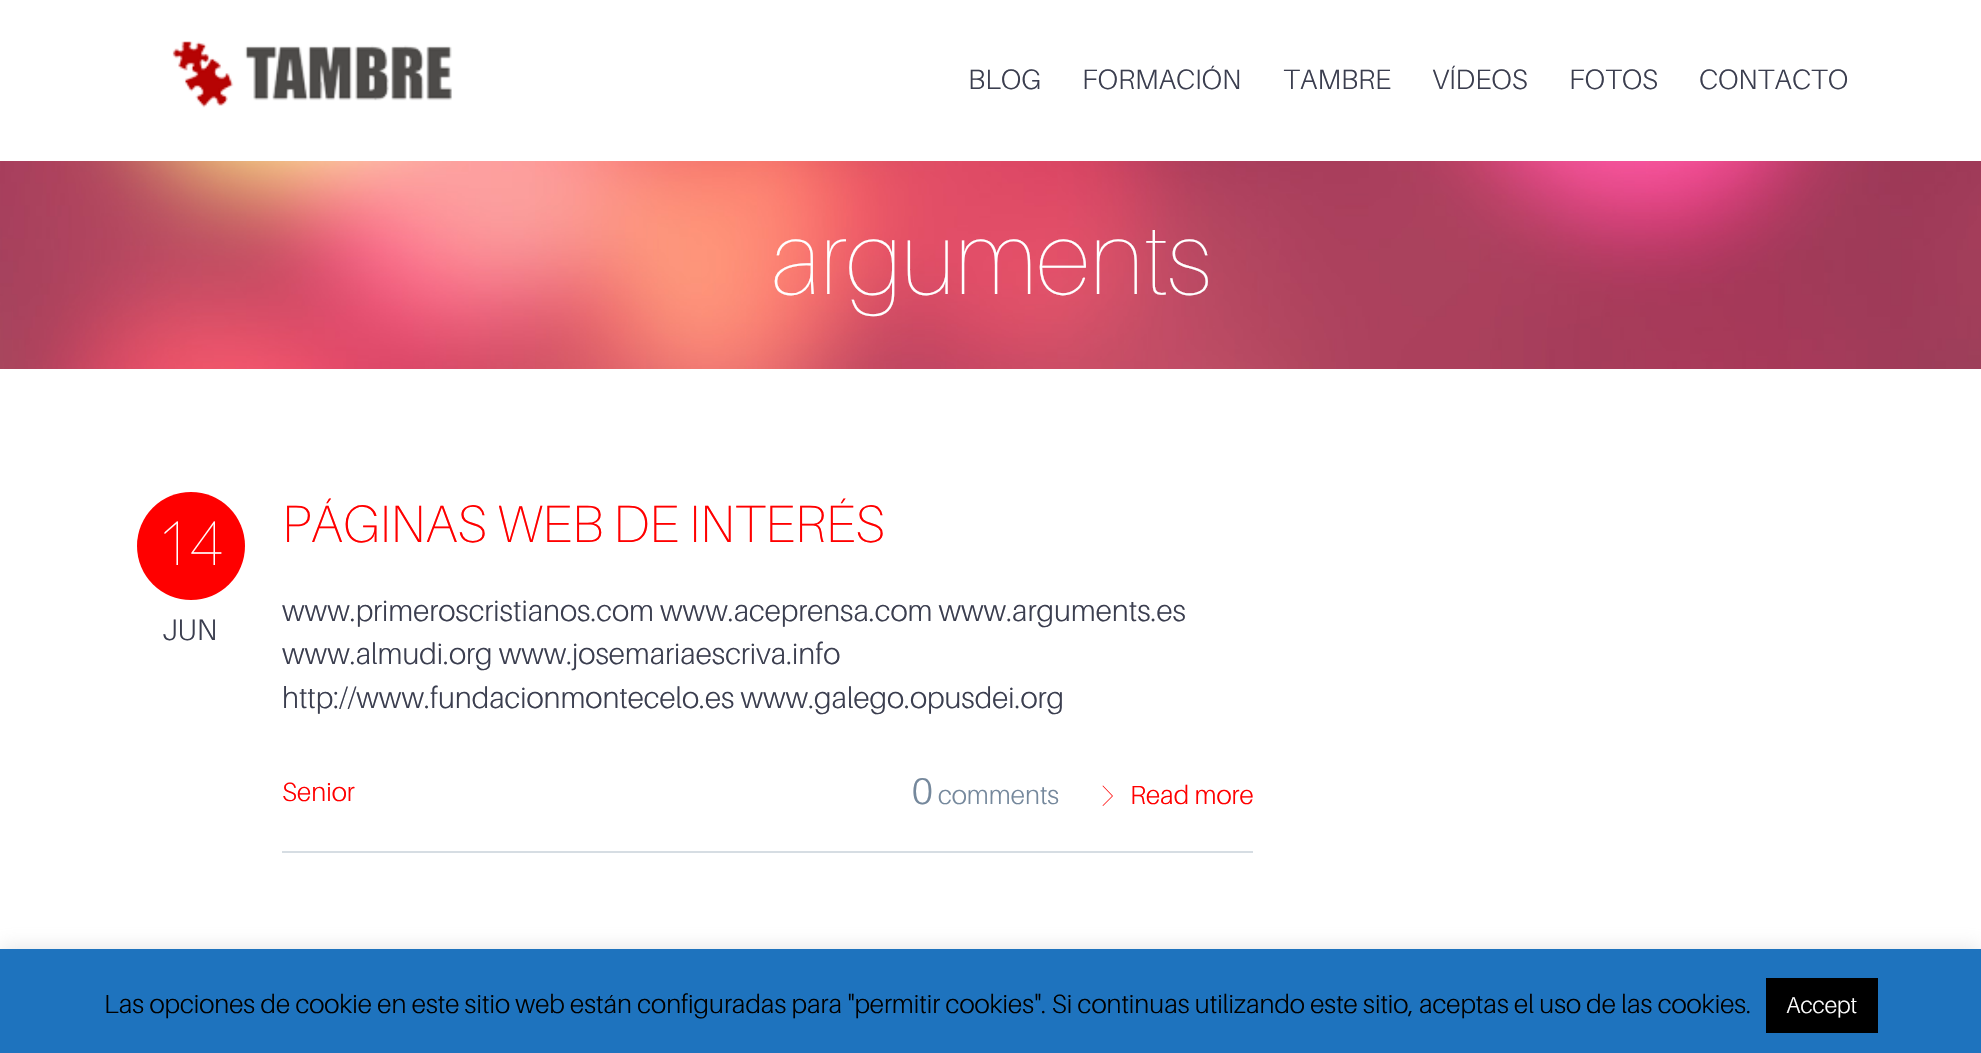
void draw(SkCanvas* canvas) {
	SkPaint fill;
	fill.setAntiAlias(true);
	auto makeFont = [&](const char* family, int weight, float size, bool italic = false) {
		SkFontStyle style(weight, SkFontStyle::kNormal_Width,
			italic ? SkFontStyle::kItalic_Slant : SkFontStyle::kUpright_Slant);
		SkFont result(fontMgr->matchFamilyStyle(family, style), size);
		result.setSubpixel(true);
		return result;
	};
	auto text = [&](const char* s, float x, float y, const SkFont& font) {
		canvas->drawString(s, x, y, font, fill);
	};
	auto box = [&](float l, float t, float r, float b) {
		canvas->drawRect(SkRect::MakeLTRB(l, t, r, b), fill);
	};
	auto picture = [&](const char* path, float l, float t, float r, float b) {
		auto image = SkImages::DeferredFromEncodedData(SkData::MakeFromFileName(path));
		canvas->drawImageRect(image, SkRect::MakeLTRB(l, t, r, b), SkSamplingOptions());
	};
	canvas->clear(0xFFFFFFFF);
	picture("image0.png", 172, 41, 452, 108);
	picture("image1.png", 0, 161, 1981, 369);
	fill.setColor(0xFFFF0000);
	canvas->drawCircle(191, 546, 54, fill);
	fill.setColor(0xFFD6DDE3);
	box(282, 851, 1253, 853);
	fill.setColor(0xFFFF0000);
	canvas->drawPath(SkPathBuilder().moveTo(1103, 806).lineTo(1102.5f, 805.5f).lineTo(1112, 796).lineTo(1102.5f, 786).lineTo(1103, 785.5f).lineTo(1113, 796).close().detach(), fill);
	fill.setColor(0x4DACABAB);
	fill.setMaskFilter(SkMaskFilter::MakeBlur(kNormal_SkBlurStyle, 9));
	canvas->drawRect(SkRect::MakeLTRB(0, 947, 1981, 1052), fill);
	fill.setMaskFilter(nullptr);
	fill.setColor(0xFF1E73BE);
	box(0, 949, 1981, 1053);
	fill.setColor(0xFF000000);
	box(1766, 978, 1878, 1033);
	auto font1 = makeFont("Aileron", 300, 28);
	fill.setColor(0xFF3B3E4F);
	text("BLOG", 968, 89, font1);
	text("FORMACIÓN", 1082, 89, font1);
	text("TAMBRE", 1283, 89, font1);
	text("VÍDEOS", 1432, 89, font1);
	text("FOTOS", 1569, 89, font1);
	text("CONTACTO", 1699, 89, font1);
	auto font2 = makeFont("Aileron", 200, 101.5f);
	fill.setColor(0xFFFFFFFF);
	text("arguments", 770, 294, font2);
	auto font3 = makeFont("Aileron", 200, 63);
	text("14", 156, 565, font3);
	auto font4 = makeFont("Aileron", 300, 29.75f);
	fill.setColor(0xFF3B3E4F);
	text("JUN", 162, 640, font4);
	auto font5 = makeFont("Aileron", 100, 52.5f);
	fill.setColor(0xFFFF0000);
	text("PÁGINAS WEB DE INTERÉS", 282, 542, font5);
	fill.setColor(0xFF3B3E4F);
	text("www.primeroscristianos.com www.aceprensa.com www.arguments.es", 282, 621, font4);
	text("www.almudi.org www.josemariaescriva.info", 282, 664, font4);
	text("http://www.fundacionmontecelo.es www.galego.opusdei.org", 282, 708, font4);
	auto font6 = makeFont("Aileron", 300, 26.25f);
	fill.setColor(0xFFFF0000);
	text("Senior", 282, 801, font6);
	auto font7 = makeFont("Aileron", 300, 37);
	fill.setColor(0xFF75889C);
	text("0", 912, 804, font7);
	text("comments", 938, 804, font6);
	fill.setColor(0xFFFF0000);
	text("Read more", 1130, 804, font6);
	fill.setColor(0xFF000000);
	text("Las opciones de cookie en este sitio web están configuradas para \"permitir cookies\". Si continuas utilizando este sitio, aceptas el uso de las cookies.", 104, 1013, font6);
	auto font8 = makeFont("Aileron", 300, 23);
	fill.setColor(0xFFFFFFFF);
	text("Accept", 1786, 1013, font8);
}
